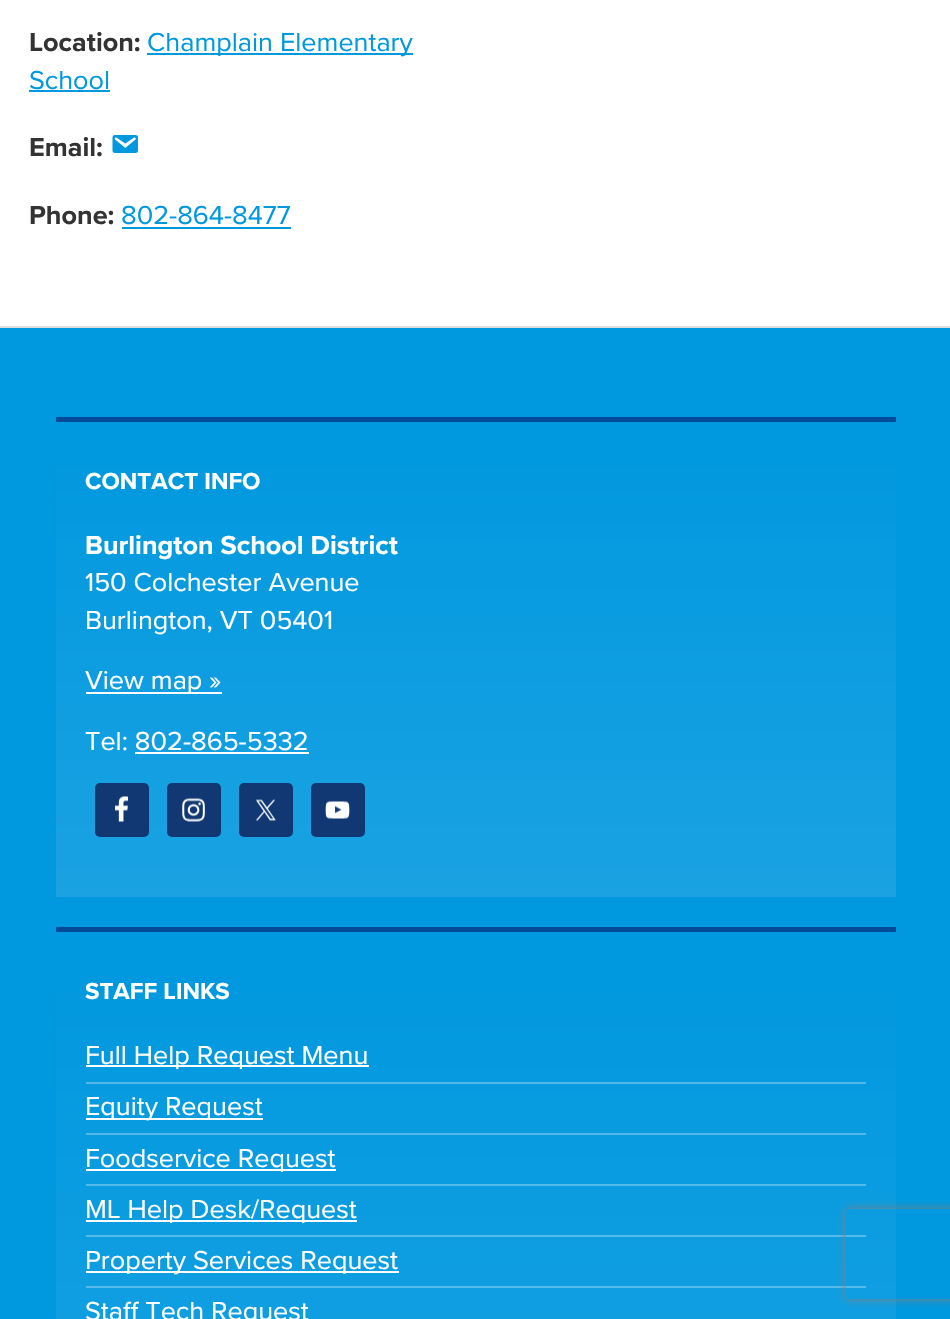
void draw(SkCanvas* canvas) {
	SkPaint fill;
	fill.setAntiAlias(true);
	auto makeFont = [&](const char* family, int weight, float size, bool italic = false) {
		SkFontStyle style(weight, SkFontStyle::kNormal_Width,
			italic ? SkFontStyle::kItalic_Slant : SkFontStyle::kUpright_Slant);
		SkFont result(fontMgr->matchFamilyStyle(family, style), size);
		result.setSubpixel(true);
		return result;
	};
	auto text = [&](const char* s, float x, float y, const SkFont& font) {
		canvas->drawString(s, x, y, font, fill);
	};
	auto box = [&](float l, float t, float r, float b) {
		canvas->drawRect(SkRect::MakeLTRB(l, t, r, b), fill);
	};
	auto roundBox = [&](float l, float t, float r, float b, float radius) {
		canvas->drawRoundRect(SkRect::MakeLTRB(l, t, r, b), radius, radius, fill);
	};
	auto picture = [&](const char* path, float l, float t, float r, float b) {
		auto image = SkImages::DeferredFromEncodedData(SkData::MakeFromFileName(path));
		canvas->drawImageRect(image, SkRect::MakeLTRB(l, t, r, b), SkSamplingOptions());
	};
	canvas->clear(0xFF0098DE);
	fill.setColor(0xFFFFFFFF);
	box(0, 0, 950, 326);
	fill.setColor(0xFF0098DE);
	box(147, 53, 413, 55);
	box(29, 90, 110, 92);
	picture("image0.png", 112, 135, 138, 153);
	box(122, 227, 291, 229);
	fill.setColor(0xFFDDDDDD);
	box(0, 326, 950, 328);
	{
		const SkColor colors[] = {0xFF0098DF, 0xFF1AA2E2};
		const float stops[] = {0, 1};
		const SkPoint ends[] = {{476, 422}, {476, 897}};
		fill.setShader(SkGradientShader::MakeLinear(ends, colors, stops, 2, SkTileMode::kClamp));
		fill.setAlpha(255);
	}
	box(56, 468, 896, 897);
	fill.setShader(nullptr);
	fill.setColor(0xFF004A98);
	box(56, 417, 896, 422);
	fill.setColor(0xFFFFFFFF);
	box(86, 692, 222, 694);
	box(135, 752, 309, 754);
	fill.setColor(0xFF113872);
	roundBox(95, 783, 149, 837, 5);
	picture("image1.png", 115, 796, 128, 822);
	roundBox(167, 783, 221, 837, 5);
	picture("image2.png", 182, 798, 205, 822);
	roundBox(239, 783, 293, 837, 5);
	picture("image3.png", 256, 799, 276, 821);
	roundBox(311, 783, 365, 837, 5);
	picture("image4.png", 325, 801, 350, 819);
	{
		const SkColor colors[] = {0xFF0098DF, 0xFF1AA2E2};
		const float stops[] = {0, 1};
		const SkPoint ends[] = {{476, 932}, {476, 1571}};
		fill.setShader(SkGradientShader::MakeLinear(ends, colors, stops, 2, SkTileMode::kClamp));
		fill.setAlpha(255);
	}
	box(56, 993, 896, 1319);
	fill.setShader(nullptr);
	fill.setColor(0xFF004A98);
	box(56, 927, 896, 932);
	fill.setColor(0xFF51B8E9);
	box(86, 1082, 866, 1084);
	fill.setColor(0xFFFFFFFF);
	box(86, 1065, 369, 1067);
	fill.setColor(0xFF52B9E9);
	box(86, 1133, 866, 1135);
	fill.setColor(0xFFFFFFFF);
	box(86, 1118, 263, 1120);
	fill.setColor(0xFF54BAE9);
	box(86, 1184, 866, 1186);
	fill.setColor(0xFFFFFFFF);
	box(86, 1169, 336, 1171);
	fill.setColor(0xFF55BAE9);
	box(86, 1235, 866, 1237);
	fill.setColor(0xFFFFFFFF);
	box(86, 1220, 357, 1222);
	fill.setColor(0xFF56BBEA);
	box(86, 1286, 866, 1288);
	fill.setColor(0xFFFFFFFF);
	box(86, 1271, 399, 1273);
	canvas->save();
	canvas->clipPath(SkPathBuilder(SkPathFillType::kEvenOdd).moveTo(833, 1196).lineTo(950, 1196).lineTo(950, 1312).lineTo(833, 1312).close().moveTo(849, 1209).lineTo(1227, 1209).cubicTo(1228.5f, 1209, 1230, 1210.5f, 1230, 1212).lineTo(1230, 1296).cubicTo(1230, 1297.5f, 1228.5f, 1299, 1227, 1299).lineTo(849, 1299).cubicTo(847.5f, 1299, 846, 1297.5f, 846, 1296).lineTo(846, 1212).cubicTo(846, 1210.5f, 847.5f, 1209, 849, 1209).close().detach(), true);
	fill.setColor(0xFF808080);
	fill.setMaskFilter(SkMaskFilter::MakeBlur(kNormal_SkBlurStyle, 4));
	canvas->drawRoundRect(SkRect::MakeLTRB(846, 1209, 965, 1299), 3, 3, fill);
	fill.setMaskFilter(nullptr);
	canvas->restore();
	auto font1 = makeFont("Proxima Nova", 700, 27);
	fill.setColor(0xFF333333);
	text("Location:", 29, 51, font1);
	auto font2 = makeFont("Proxima Nova", 400, 27);
	fill.setColor(0xFF0098DE);
	text("Champlain Elementary", 147, 51, font2);
	text("School", 29, 89, font2);
	fill.setColor(0xFF333333);
	text("Email:", 29, 156, font1);
	text("Phone:", 29, 224, font1);
	fill.setColor(0xFF0098DE);
	text("802-864-8477", 121, 224, font2);
	auto font3 = makeFont("Proxima Nova", 700, 24);
	fill.setColor(0xFFFFFFFF);
	text("CONTACT INFO", 85, 489, font3);
	text("Burlington School District", 85, 554, font1);
	text("150 Colchester Avenue", 85, 591, font2);
	text("Burlington, VT 05401", 85, 629, font2);
	text("View map »", 85, 689, font2);
	text("Tel: 802-865-5332", 85, 750, font2);
	text("STAFF LINKS", 85, 999, font3);
	text("Full Help Request Menu", 85, 1064, font2);
	text("Equity Request", 85, 1115, font2);
	text("Foodservice Request", 85, 1167, font2);
	text("ML Help Desk/Request", 85, 1218, font2);
	text("Property Services Request", 85, 1269, font2);
	text("Staff Tech Request", 85, 1320, font2);
}
